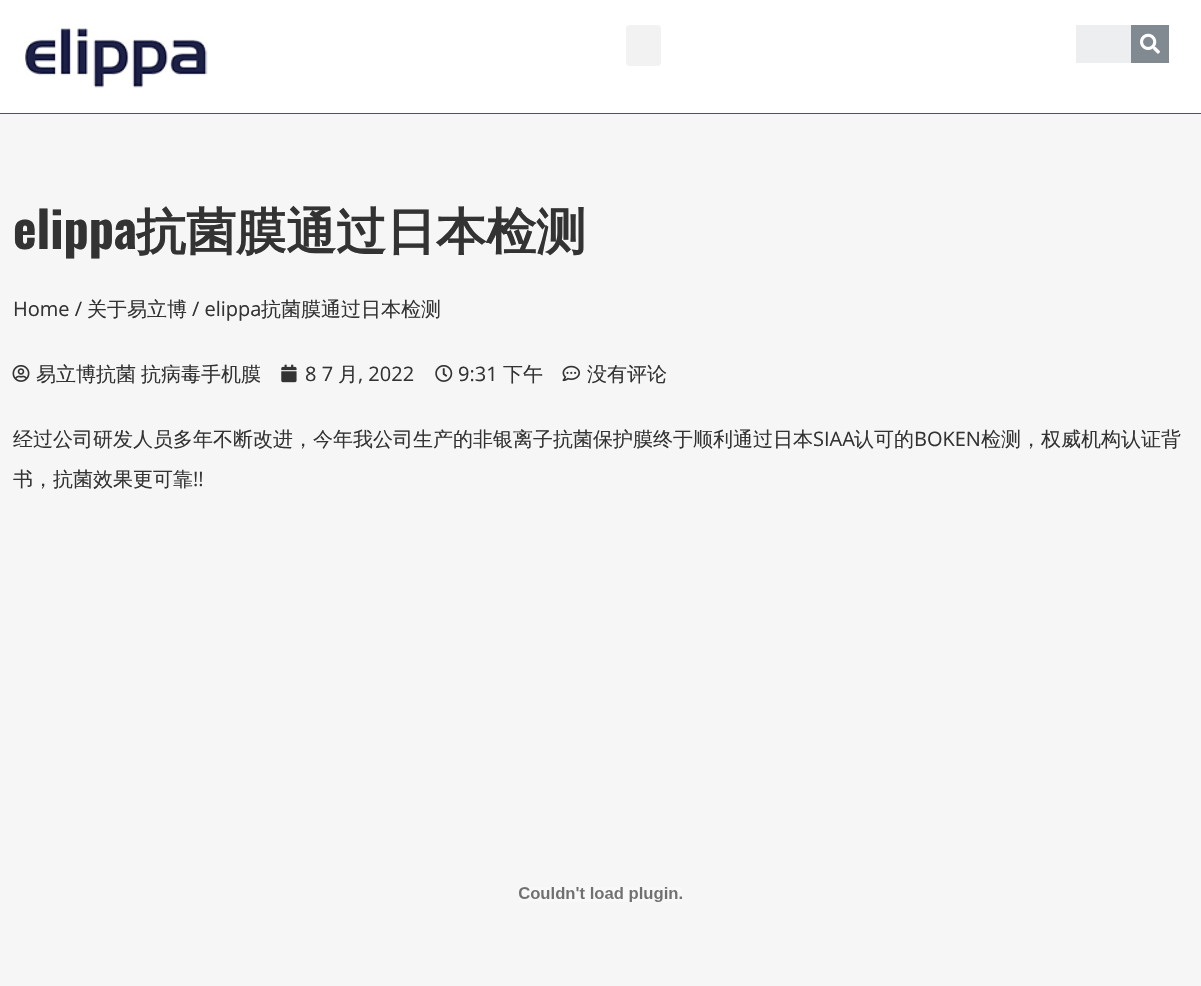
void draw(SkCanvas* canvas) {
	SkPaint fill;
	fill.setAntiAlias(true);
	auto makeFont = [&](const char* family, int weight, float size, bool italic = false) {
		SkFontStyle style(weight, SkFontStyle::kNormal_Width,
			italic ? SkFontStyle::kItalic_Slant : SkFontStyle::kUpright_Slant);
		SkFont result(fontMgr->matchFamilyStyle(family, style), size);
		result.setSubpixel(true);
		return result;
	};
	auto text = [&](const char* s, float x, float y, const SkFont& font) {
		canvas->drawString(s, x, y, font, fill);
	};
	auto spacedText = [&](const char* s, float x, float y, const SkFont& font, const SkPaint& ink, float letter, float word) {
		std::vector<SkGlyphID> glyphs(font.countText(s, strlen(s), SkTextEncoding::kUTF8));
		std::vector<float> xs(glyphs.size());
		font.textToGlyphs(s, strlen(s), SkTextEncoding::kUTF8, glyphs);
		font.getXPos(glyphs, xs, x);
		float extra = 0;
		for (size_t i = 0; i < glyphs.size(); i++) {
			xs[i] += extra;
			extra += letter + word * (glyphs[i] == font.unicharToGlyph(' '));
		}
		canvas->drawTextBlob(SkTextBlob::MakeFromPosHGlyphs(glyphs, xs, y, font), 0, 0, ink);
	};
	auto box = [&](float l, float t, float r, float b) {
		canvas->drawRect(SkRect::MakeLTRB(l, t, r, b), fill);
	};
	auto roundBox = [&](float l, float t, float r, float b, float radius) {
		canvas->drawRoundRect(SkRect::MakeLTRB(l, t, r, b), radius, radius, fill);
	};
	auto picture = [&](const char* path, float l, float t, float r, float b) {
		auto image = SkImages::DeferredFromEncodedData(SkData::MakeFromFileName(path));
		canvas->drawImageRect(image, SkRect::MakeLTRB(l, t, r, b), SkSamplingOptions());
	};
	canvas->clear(0xFFFFFFFF);
	fill.setColor(0xFF19763D);
	box(0, 113, 1201, 114);
	picture("image0.png", 25, 28, 208, 88);
	fill.setColor(0xFFF2F2F2);
	roundBox(626, 25, 661, 66, 4);
	fill.setColor(0xFFECEEEF);
	box(1076, 25, 1131, 63);
	fill.setColor(0xFF818A91);
	box(1131, 25, 1169, 63);
	picture("image1.png", 1140, 33, 1160, 54);
	fill.setColor(0xFFF6F6F6);
	box(0, 114, 1201, 986);
	picture("image2.png", 12, 365, 30, 382);
	picture("image3.png", 281, 364, 297, 383);
	picture("image4.png", 435, 365, 453, 382);
	picture("image5.png", 562, 365, 580, 382);
	picture("image6.png", 519, 887, 682, 902);
	auto font1 = makeFont("Oswald", 700, 50);
	fill.setColor(0xFF333333);
	text("elippa", 13, 249, font1);
	auto font2 = makeFont("WenQuanYi Zen Hei", 700, 50);
	text("抗菌膜通过日本检测", 136, 249, font2);
	auto font3 = makeFont("Open Sans", 400, 20);
	text("Home /", 13, 316, font3);
	auto font4 = makeFont("WenQuanYi Zen Hei", 500, 20);
	text("关于易立博", 87, 316, font4);
	text("/ elippa", 192, 316, font3);
	text("抗菌膜通过日本检测", 261, 316, font4);
	spacedText("易立博抗菌 抗病毒手机膜", 36, 381, font4, fill, 0, -1);
	text("8 7", 305, 381, font3);
	text("月", 338, 381, font4);
	text(", 2022", 358, 381, font3);
	text("9:31", 458, 381, font3);
	text("下午", 503, 381, font4);
	text("没有评论", 587, 381, font4);
	text("经过公司研发人员多年不断改进，今年我公司生产的非银离子抗菌保护膜终于顺利通过日本", 13, 446, font4);
	text("SIAA", 813, 446, font3);
	text("认可的", 854, 446, font4);
	text("BOKEN", 914, 446, font3);
	text("检测，权威机构认证背", 981, 446, font4);
	text("书，抗菌效果更可靠", 13, 486, font4);
	text("!!", 193, 486, font3);
}
